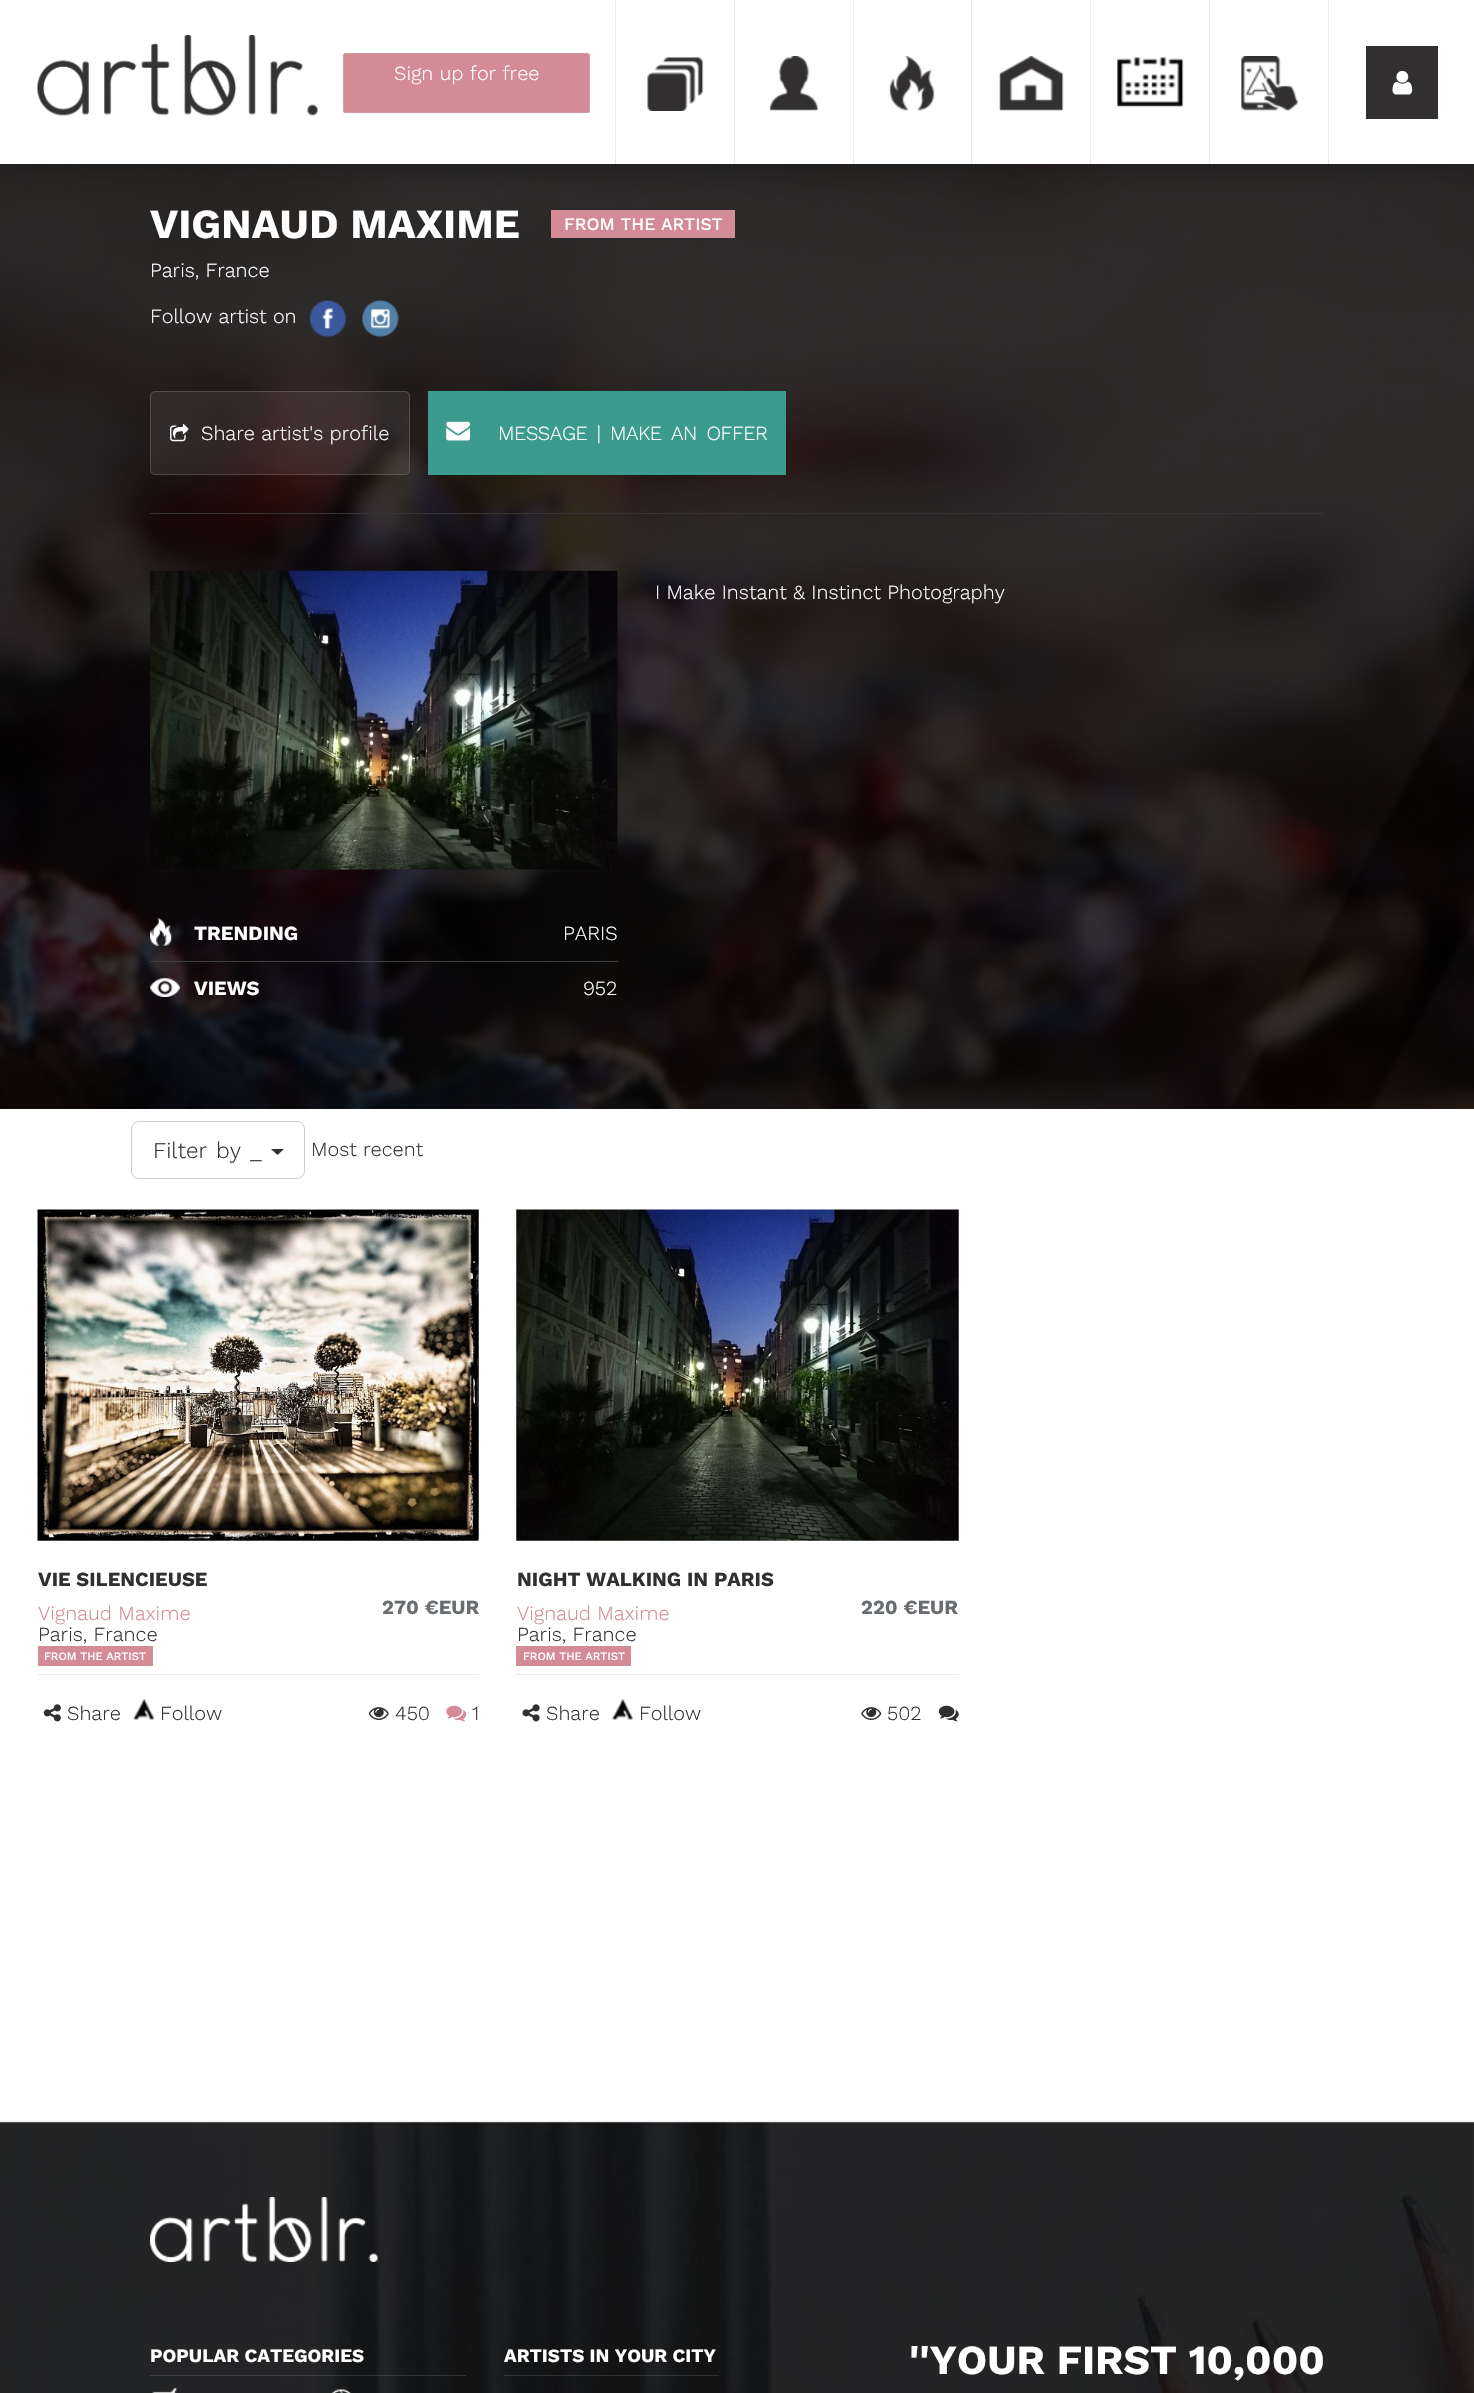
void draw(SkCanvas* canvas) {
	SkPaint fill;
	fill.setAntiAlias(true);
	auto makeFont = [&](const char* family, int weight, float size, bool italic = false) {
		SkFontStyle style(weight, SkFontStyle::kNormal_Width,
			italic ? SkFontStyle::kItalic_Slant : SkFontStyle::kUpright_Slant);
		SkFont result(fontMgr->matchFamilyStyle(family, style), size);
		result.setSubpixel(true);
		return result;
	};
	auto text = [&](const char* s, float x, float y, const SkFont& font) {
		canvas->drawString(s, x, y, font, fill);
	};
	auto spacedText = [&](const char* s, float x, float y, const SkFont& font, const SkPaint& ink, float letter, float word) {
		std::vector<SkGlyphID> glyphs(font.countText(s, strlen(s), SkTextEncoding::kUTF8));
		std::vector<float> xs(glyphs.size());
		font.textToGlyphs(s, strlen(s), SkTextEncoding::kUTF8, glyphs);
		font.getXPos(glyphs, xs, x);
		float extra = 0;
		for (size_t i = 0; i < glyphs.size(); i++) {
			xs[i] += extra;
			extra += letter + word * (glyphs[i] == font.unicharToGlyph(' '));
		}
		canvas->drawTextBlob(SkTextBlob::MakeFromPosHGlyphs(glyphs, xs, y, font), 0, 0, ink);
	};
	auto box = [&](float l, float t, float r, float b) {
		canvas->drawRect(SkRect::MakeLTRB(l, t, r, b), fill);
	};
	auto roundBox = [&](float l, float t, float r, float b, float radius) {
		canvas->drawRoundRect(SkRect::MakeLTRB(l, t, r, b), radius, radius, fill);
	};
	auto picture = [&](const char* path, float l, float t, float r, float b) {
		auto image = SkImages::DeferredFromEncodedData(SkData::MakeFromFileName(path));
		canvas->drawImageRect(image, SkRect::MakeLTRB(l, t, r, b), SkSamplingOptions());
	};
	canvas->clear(0xFFFFFFFF);
	picture("image8.png", 0, 164, 1474, 1109);
	fill.setColor(0xFFD38B96);
	box(551, 210, 735, 238);
	fill.setColor(0x6B000000);
	fill.setMaskFilter(SkMaskFilter::MakeBlur(kNormal_SkBlurStyle, 15.5f));
	canvas->drawRect(SkRect::MakeLTRB(0, 0, 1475, 164), fill);
	fill.setMaskFilter(nullptr);
	fill.setColor(0xFFFFFFFF);
	box(0, 0, 1474, 164);
	picture("image0.png", 37, 35, 318, 116);
	fill.setColor(0xFFD38B96);
	roundBox(343, 53, 590, 113, 2.5f);
	fill.setStyle(SkPaint::kStroke_Style);
	fill.setStrokeWidth(1);
	fill.setColor(0x26EBECF1);
	canvas->drawRoundRect(SkRect::MakeLTRB(343.5f, 53.5f, 589.5f, 112.5f), 2, 2, fill);
	fill.setStyle(SkPaint::kFill_Style);
	fill.setColor(0xFFEAEAEA);
	box(615, 0, 616, 164);
	picture("image1.png", 647, 57, 704, 111);
	box(734, 0, 735, 164);
	picture("image2.png", 769, 56, 819, 111);
	box(853, 0, 854, 164);
	picture("image3.png", 889, 56, 935, 111);
	box(971, 0, 972, 164);
	picture("image4.png", 999, 56, 1064, 111);
	box(1090, 0, 1091, 164);
	picture("image5.png", 1117, 57, 1184, 107);
	box(1209, 0, 1210, 164);
	picture("image6.png", 1241, 56, 1299, 111);
	box(1328, 0, 1329, 164);
	fill.setColor(0xFF322F30);
	box(1366, 46, 1438, 119);
	picture("image7.png", 1392, 70, 1413, 95);
	picture("image9.png", 309, 300, 347, 338);
	picture("image10.png", 361, 299, 399, 338);
	fill.setColor(0x14EAEAEA);
	roundBox(150, 391, 410, 475, 5);
	fill.setStyle(SkPaint::kStroke_Style);
	fill.setColor(0x26FFFFFF);
	canvas->drawRoundRect(SkRect::MakeLTRB(150.5f, 391.5f, 409.5f, 474.5f), 4.5f, 4.5f, fill);
	picture("image11.png", 170, 424, 189, 442);
	fill.setStyle(SkPaint::kFill_Style);
	fill.setColor(0xFF3A9B8E);
	box(428, 391, 786, 475);
	picture("image12.png", 446, 421, 470, 441);
	fill.setColor(0xFF343434);
	box(150, 513, 1325, 514);
	picture("image13.png", 150, 570, 618, 870);
	picture("image14.png", 150, 918, 172, 946);
	fill.setColor(0xFF3F3F3F);
	box(150, 961, 618, 962);
	picture("image15.png", 150, 978, 180, 997);
	fill.setStyle(SkPaint::kStroke_Style);
	fill.setColor(0xFFCCCCCC);
	canvas->drawRoundRect(SkRect::MakeLTRB(131.5f, 1121.5f, 304.5f, 1178.5f), 7.5f, 7.5f, fill);
	fill.setStyle(SkPaint::kFill_Style);
	fill.setColor(0xFF322F30);
	canvas->drawPath(SkPathBuilder().moveTo(271, 1149).lineTo(284, 1149).lineTo(277.5f, 1155).close().detach(), fill);
	picture("image16.png", 37, 1209, 479, 1541);
	fill.setColor(0xFFEAEAEA);
	box(38, 1674, 479, 1675);
	fill.setColor(0xFFD38B96);
	box(38, 1646, 153, 1666);
	picture("image17.png", 43, 1704, 61, 1722);
	picture("image18.png", 133, 1699, 154, 1720);
	picture("image19.png", 368, 1707, 389, 1720);
	picture("image20.png", 446, 1705, 467, 1722);
	picture("image21.png", 516, 1209, 959, 1541);
	fill.setColor(0xFFEAEAEA);
	box(516, 1674, 959, 1675);
	fill.setColor(0xFFD38B96);
	box(516, 1646, 631, 1666);
	picture("image22.png", 522, 1704, 540, 1722);
	picture("image23.png", 612, 1699, 633, 1720);
	picture("image24.png", 861, 1707, 882, 1720);
	picture("image25.png", 938, 1705, 959, 1722);
	picture("image26.png", 0, 2121, 1474, 2393);
	picture("image27.png", 150, 2197, 378, 2262);
	fill.setColor(0x26EAEAEA);
	box(150, 2375, 466, 2376);
	picture("image28.png", 152, 2388, 177, 2393);
	picture("image29.png", 331, 2389, 351, 2393);
	box(504, 2375, 719, 2376);
	auto font1 = makeFont("Work Sans", 300, 20);
	fill.setColor(0xFFFFFFFF);
	text("Sign up for free", 394, 80, font1);
	auto font2 = makeFont("Work Sans", 700, 41.25f);
	text("VIGNAUD MAXIME", 150, 238, font2);
	auto font3 = makeFont("Work Sans", 500, 17.5f);
	text("FROM THE ARTIST", 564, 230, font3);
	text("Paris, France", 150, 277, font1);
	text("Follow artist on", 150, 323, font1);
	text("Share artist's profile", 201, 440, font1);
	spacedText("MESSAGE | MAKE AN OFFER", 498, 440, font1, fill, -0.4f, 3.5f);
	text("I Make Instant & Instinct Photography", 655, 599, font1);
	auto font4 = makeFont("Work Sans", 700, 20);
	text("TRENDING", 194, 940, font4);
	text("PARIS", 563, 940, font1);
	text("VIEWS", 194, 995, font4);
	text("952", 583, 995, font1);
	auto font5 = makeFont("Work Sans", 300, 22.5f);
	fill.setColor(0xFF322F30);
	spacedText("Filter by _", 153, 1158, font5, fill, 0, 2);
	text("Most recent", 311, 1156, font1);
	text("VIE SILENCIEUSE", 38, 1586, font4);
	fill.setColor(0xFFD38B96);
	text("Vignaud Maxime", 38, 1620, font1);
	fill.setColor(0xFF322F30);
	text("Paris, France", 38, 1641, font1);
	fill.setColor(0xFF6A6D70);
	text("270 €EUR", 382, 1614, font4);
	auto font6 = makeFont("Work Sans", 500, 11.25f);
	fill.setColor(0xFFFFFFFF);
	text("FROM THE ARTIST", 44, 1660, font6);
	fill.setColor(0xFF322F30);
	text("Share", 67, 1720, font1);
	text("Follow", 160, 1720, font1);
	text("450", 395, 1720, font1);
	text("1", 472, 1720, font1);
	text("NIGHT WALKING IN PARIS", 517, 1586, font4);
	fill.setColor(0xFFD38B96);
	text("Vignaud Maxime", 517, 1620, font1);
	fill.setColor(0xFF322F30);
	text("Paris, France", 517, 1641, font1);
	fill.setColor(0xFF6A6D70);
	text("220 €EUR", 861, 1614, font4);
	fill.setColor(0xFFFFFFFF);
	text("FROM THE ARTIST", 523, 1660, font6);
	fill.setColor(0xFF322F30);
	text("Share", 546, 1720, font1);
	text("Follow", 639, 1720, font1);
	text("502", 887, 1720, font1);
	auto font7 = makeFont("Work Sans", 700, 18.75f);
	fill.setColor(0xFFFFFFFF);
	text("POPULAR CATEGORIES", 150, 2362, font7);
	text("ARTISTS IN YOUR CITY", 504, 2362, font7);
	text("''YOUR FIRST 10,000", 909, 2374, font2);
}
